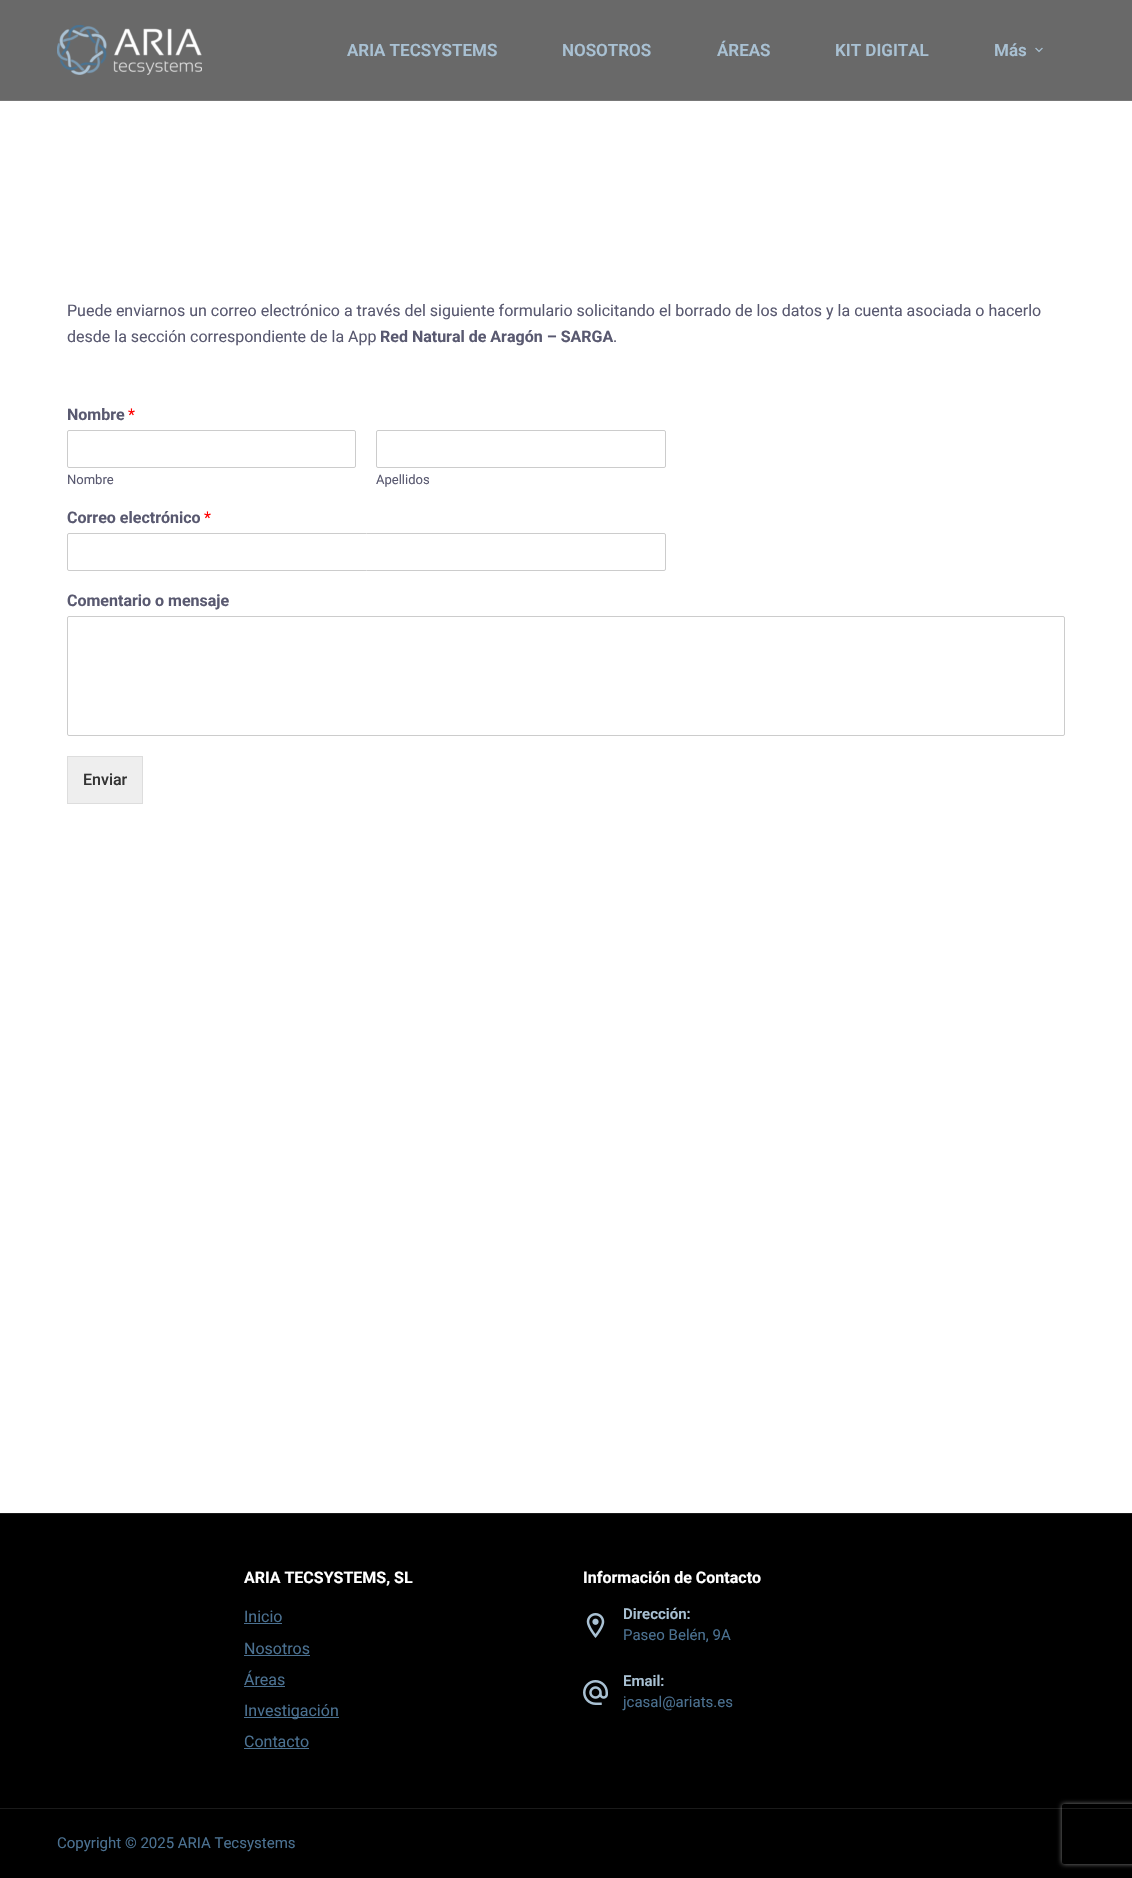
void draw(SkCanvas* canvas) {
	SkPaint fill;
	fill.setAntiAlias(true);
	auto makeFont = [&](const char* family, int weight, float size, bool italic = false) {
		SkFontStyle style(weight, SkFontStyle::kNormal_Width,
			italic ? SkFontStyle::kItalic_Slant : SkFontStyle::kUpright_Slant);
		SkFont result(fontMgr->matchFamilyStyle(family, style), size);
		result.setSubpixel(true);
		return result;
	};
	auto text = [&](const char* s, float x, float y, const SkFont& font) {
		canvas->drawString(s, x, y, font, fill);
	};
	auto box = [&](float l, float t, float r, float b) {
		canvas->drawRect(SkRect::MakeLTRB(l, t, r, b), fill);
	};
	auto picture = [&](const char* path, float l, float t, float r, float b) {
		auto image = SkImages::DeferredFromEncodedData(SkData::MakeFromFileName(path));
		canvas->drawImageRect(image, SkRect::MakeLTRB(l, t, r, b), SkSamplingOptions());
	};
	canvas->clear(0xFFFFFFFF);
	fill.setColor(0xFF696969);
	box(0, 0, 1132, 100);
	fill.setColor(0xFF787878);
	box(0, 100, 1132, 101);
	picture("image0.png", 57, 25, 202, 75);
	picture("image1.png", 1035, 47, 1043, 53);
	fill.setStyle(SkPaint::kStroke_Style);
	fill.setStrokeWidth(1);
	fill.setColor(0xFFCCCCCC);
	canvas->drawRoundRect(SkRect::MakeLTRB(67.5f, 430.5f, 355.5f, 467.5f), 1.5f, 1.5f, fill);
	canvas->drawRoundRect(SkRect::MakeLTRB(376.5f, 430.5f, 665.5f, 467.5f), 1.5f, 1.5f, fill);
	canvas->drawRoundRect(SkRect::MakeLTRB(67.5f, 533.5f, 665.5f, 570.5f), 1.5f, 1.5f, fill);
	canvas->drawRoundRect(SkRect::MakeLTRB(67.5f, 616.5f, 1064.5f, 735.5f), 1.5f, 1.5f, fill);
	fill.setStyle(SkPaint::kFill_Style);
	fill.setColor(0xFFEEEEEE);
	canvas->drawRect(SkRect::MakeLTRB(67.5f, 756.5f, 142.5f, 803.5f), fill);
	fill.setStyle(SkPaint::kStroke_Style);
	fill.setColor(0xFFDDDDDD);
	canvas->drawRect(SkRect::MakeLTRB(67.5f, 756.5f, 142.5f, 803.5f), fill);
	fill.setStyle(SkPaint::kFill_Style);
	fill.setColor(0xFF000000);
	box(0, 1514, 1132, 1878);
	fill.setColor(0xFF1A1A1A);
	box(0, 1513, 1132, 1514);
	fill.setColor(0xFF4B7191);
	box(244, 1623, 282, 1624);
	box(244, 1655, 310, 1656);
	box(244, 1686, 285, 1687);
	box(244, 1717, 339, 1718);
	box(244, 1748, 309, 1749);
	picture("image2.png", 586, 1613, 605, 1638);
	picture("image3.png", 583, 1680, 608, 1705);
	fill.setColor(0xFF1A1A1A);
	box(0, 1808, 1132, 1809);
	canvas->save();
	canvas->clipPath(SkPathBuilder(SkPathFillType::kEvenOdd).moveTo(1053, 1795).lineTo(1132, 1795).lineTo(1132, 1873).lineTo(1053, 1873).close().moveTo(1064, 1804).lineTo(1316, 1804).cubicTo(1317, 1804, 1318, 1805, 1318, 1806).lineTo(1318, 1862).cubicTo(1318, 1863, 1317, 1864, 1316, 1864).lineTo(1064, 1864).cubicTo(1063, 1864, 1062, 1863, 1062, 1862).lineTo(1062, 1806).cubicTo(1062, 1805, 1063, 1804, 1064, 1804).close().detach(), true);
	fill.setColor(0xFF808080);
	fill.setMaskFilter(SkMaskFilter::MakeBlur(kNormal_SkBlurStyle, 2.5f));
	canvas->drawRoundRect(SkRect::MakeLTRB(1062, 1804, 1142, 1864), 2, 2, fill);
	fill.setMaskFilter(nullptr);
	canvas->restore();
	auto font1 = makeFont("Roboto", 600, 17);
	fill.setColor(0xFFA9C1D3);
	text("ARIA TECSYSTEMS", 347, 56, font1);
	text("NOSOTROS", 562, 56, font1);
	text("ÁREAS", 717, 56, font1);
	text("KIT DIGITAL", 835, 56, font1);
	text("Más", 994, 56, font1);
	auto font2 = makeFont("Roboto", 400, 16);
	fill.setColor(0xFF595970);
	text("Puede enviarnos un correo electrónico a través del siguiente formulario solicitando el borrado de los datos y la cuenta asociada o hacerlo", 67, 316, font2);
	text("desde la sección correspondiente de la App", 67, 342, font2);
	auto font3 = makeFont("Roboto", 700, 16);
	text("Red Natural de Aragón – SARGA", 380, 342, font3);
	text(".", 613, 342, font2);
	text("Nombre", 67, 420, font3);
	fill.setColor(0xFFFF0000);
	text("*", 128, 420, font2);
	auto font4 = makeFont("Roboto", 400, 13);
	fill.setColor(0xFF595970);
	text("Nombre", 67, 484, font4);
	text("Apellidos", 376, 484, font4);
	text("Correo electrónico", 67, 523, font3);
	fill.setColor(0xFFFF0000);
	text("*", 204, 523, font2);
	fill.setColor(0xFF595970);
	text("Comentario o mensaje", 67, 606, font3);
	auto font5 = makeFont("Roboto", 500, 16);
	fill.setColor(0xFF333333);
	text("Enviar", 83, 785, font5);
	fill.setColor(0xFFFFFFFF);
	text("ARIA TECSYSTEMS, SL", 244, 1583, font3);
	fill.setColor(0xFF4B7191);
	text("Inicio", 244, 1622, font2);
	text("Nosotros", 244, 1654, font2);
	text("Áreas", 244, 1685, font2);
	text("Investigación", 244, 1716, font2);
	text("Contacto", 244, 1747, font2);
	fill.setColor(0xFFFFFFFF);
	text("Información de Contacto", 583, 1583, font3);
	auto font6 = makeFont("Roboto", 600, 15);
	fill.setColor(0xFFA9C1D3);
	text("Dirección:", 623, 1619, font6);
	auto font7 = makeFont("Roboto", 400, 15);
	fill.setColor(0xFF4B7191);
	text("Paseo Belén, 9A", 623, 1640, font7);
	fill.setColor(0xFFA9C1D3);
	text("Email:", 623, 1686, font6);
	fill.setColor(0xFF4B7191);
	text("jcasal@ariats.es", 623, 1707, font7);
	text("Copyright © 2025 ARIA Tecsystems", 57, 1848, font7);
}
